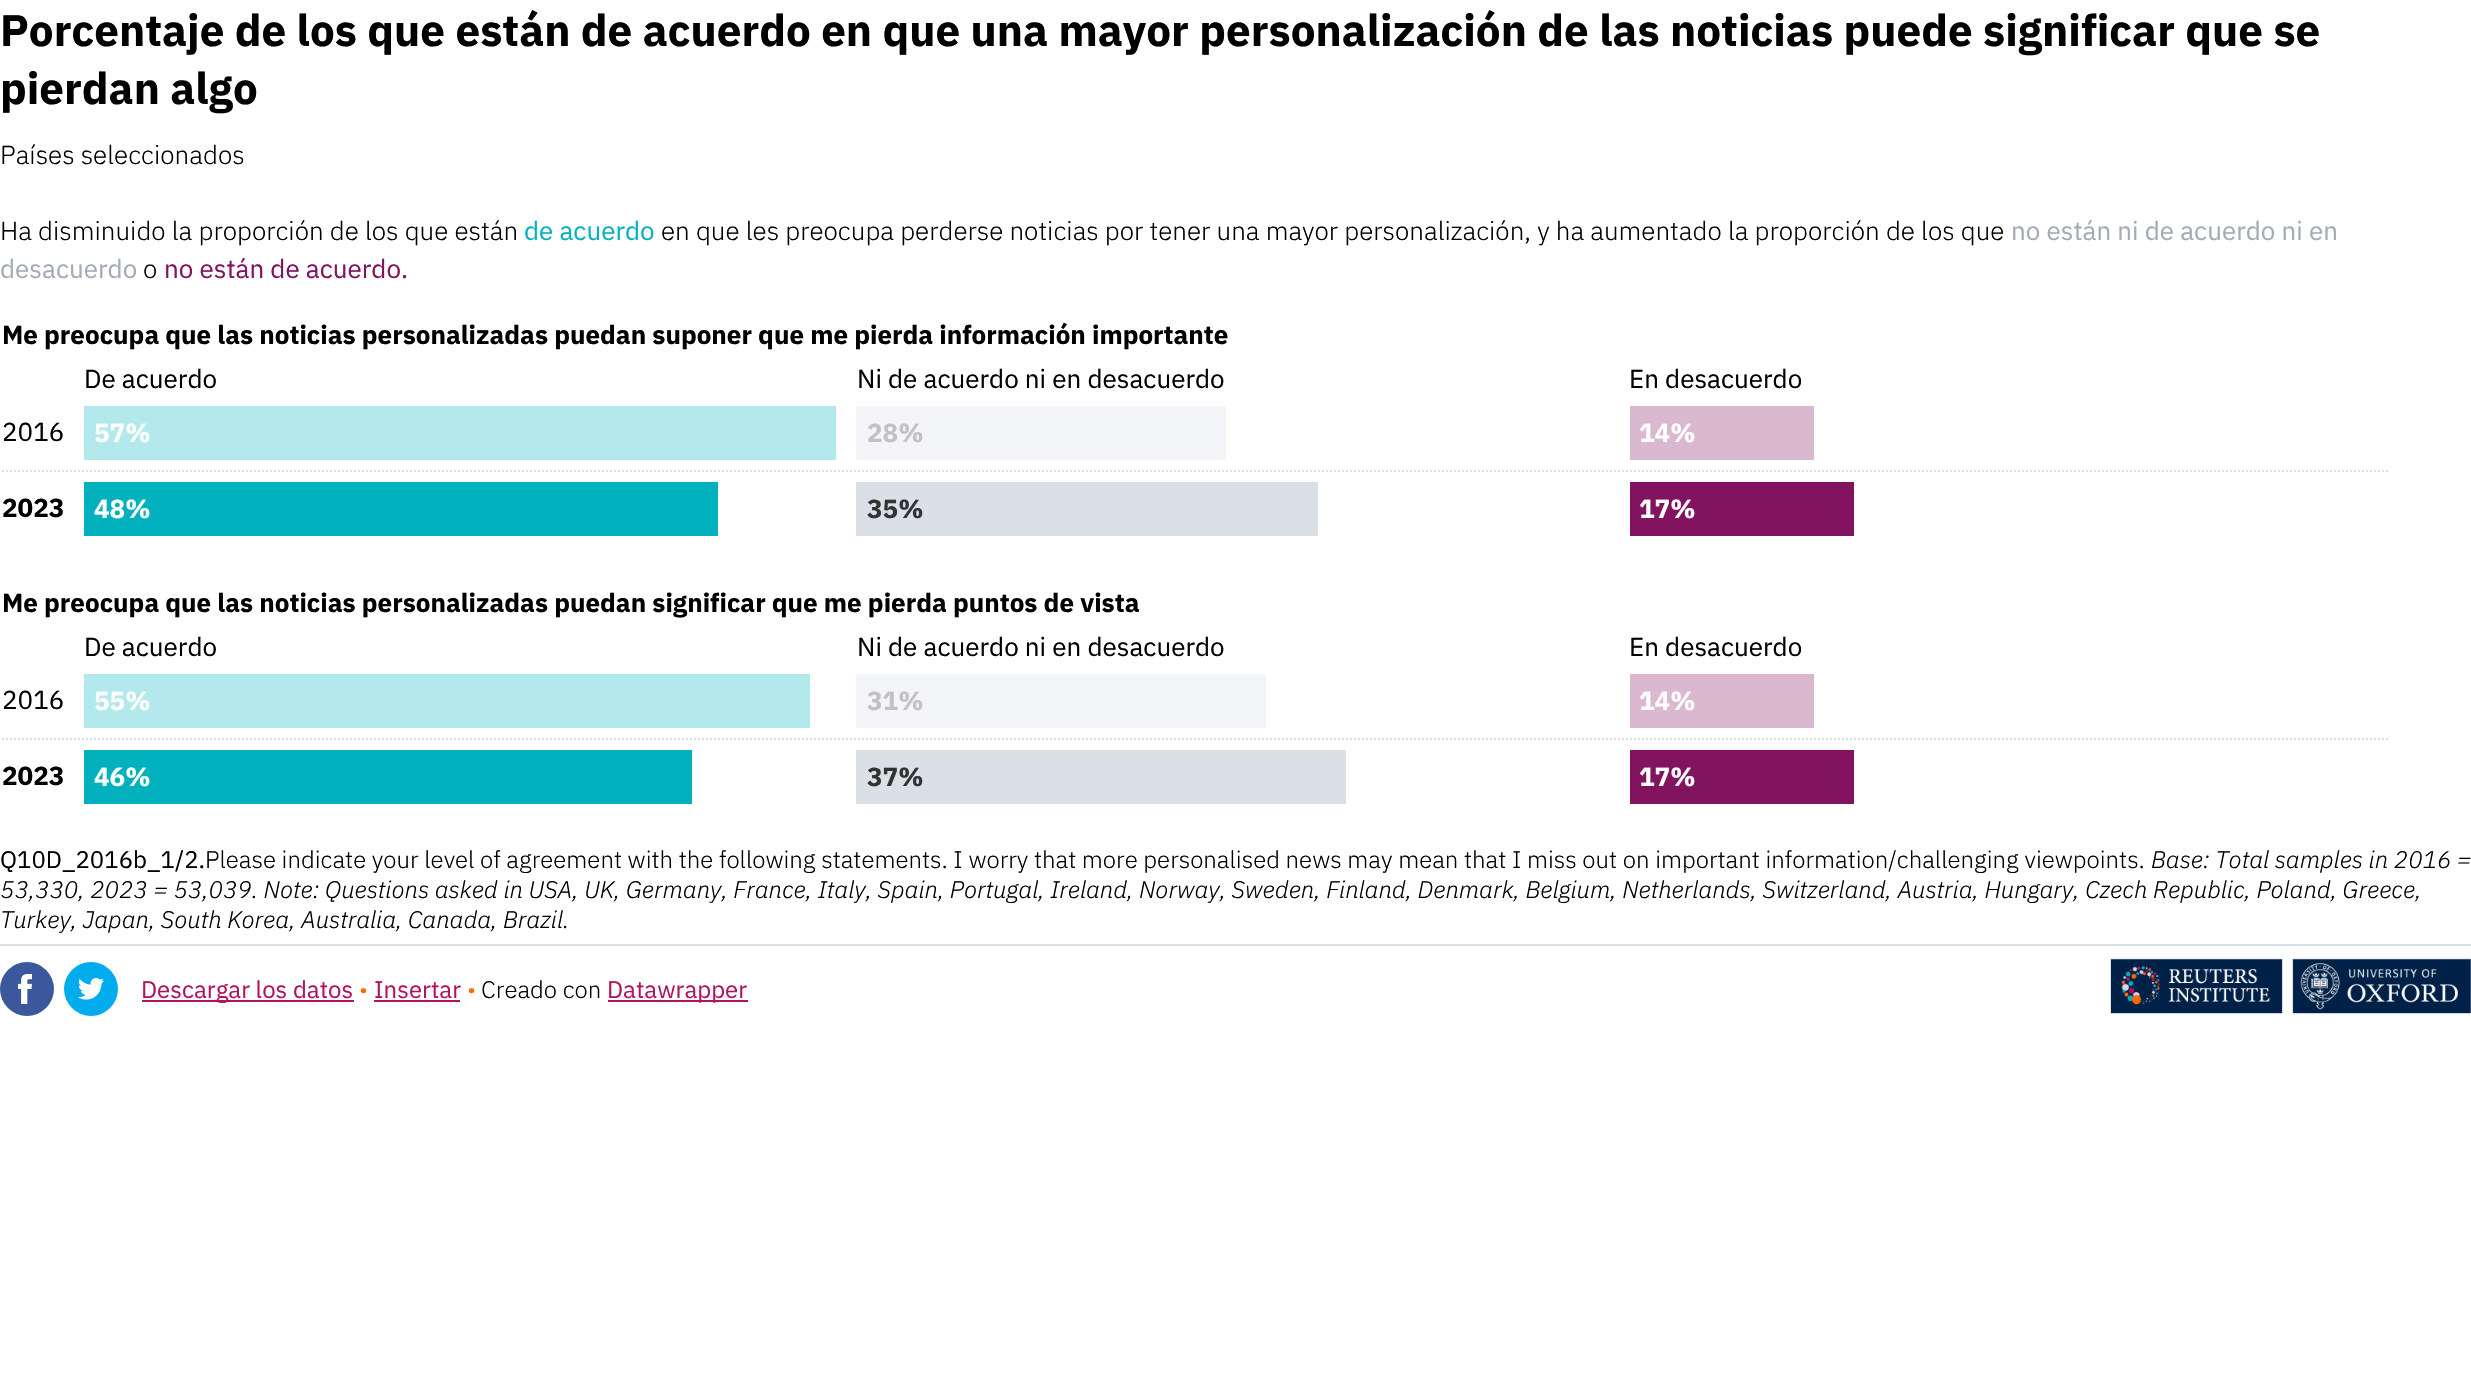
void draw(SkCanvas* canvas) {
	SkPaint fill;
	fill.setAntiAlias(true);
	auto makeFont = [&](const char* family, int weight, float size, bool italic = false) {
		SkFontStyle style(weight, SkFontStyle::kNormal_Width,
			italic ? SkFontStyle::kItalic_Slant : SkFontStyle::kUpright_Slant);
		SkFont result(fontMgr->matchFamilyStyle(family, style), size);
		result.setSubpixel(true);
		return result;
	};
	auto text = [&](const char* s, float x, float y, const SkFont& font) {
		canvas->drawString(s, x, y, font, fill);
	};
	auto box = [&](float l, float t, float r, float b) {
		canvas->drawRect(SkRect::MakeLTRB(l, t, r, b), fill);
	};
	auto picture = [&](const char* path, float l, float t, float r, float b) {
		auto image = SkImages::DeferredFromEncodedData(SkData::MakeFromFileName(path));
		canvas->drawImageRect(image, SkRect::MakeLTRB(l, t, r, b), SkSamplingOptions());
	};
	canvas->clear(0xFFFFFFFF);
	fill.setColor(0xFFB3E8EC);
	box(84, 406, 836, 460);
	fill.setColor(0xFFF4F5F8);
	box(856, 406, 1226, 460);
	fill.setColor(0xFFDAB8CF);
	box(1630, 406, 1814, 460);
	fill.setStyle(SkPaint::kStroke_Style);
	fill.setStrokeWidth(2);
	fill.setColor(0xFFDDDDDD);
	fill.setPathEffect(SkDashPathEffect::Make({{2, 2}}, 0));
	canvas->drawPath(SkPathBuilder().moveTo(2, 471).lineTo(2390, 471).detach(), fill);
	fill.setPathEffect(nullptr);
	fill.setStyle(SkPaint::kFill_Style);
	fill.setColor(0xFF01B2BE);
	box(84, 482, 718, 536);
	fill.setColor(0xFFDBDFE6);
	box(856, 482, 1318, 536);
	fill.setColor(0xFF82135F);
	box(1630, 482, 1854, 536);
	fill.setColor(0xFFB3E8EC);
	box(84, 674, 810, 728);
	fill.setColor(0xFFF4F5F8);
	box(856, 674, 1266, 728);
	fill.setColor(0xFFDAB8CF);
	box(1630, 674, 1814, 728);
	fill.setStyle(SkPaint::kStroke_Style);
	fill.setColor(0xFFDDDDDD);
	fill.setPathEffect(SkDashPathEffect::Make({{2, 2}}, 0));
	canvas->drawPath(SkPathBuilder().moveTo(2, 739).lineTo(2390, 739).detach(), fill);
	fill.setPathEffect(nullptr);
	fill.setStyle(SkPaint::kFill_Style);
	fill.setColor(0xFF01B2BE);
	box(84, 750, 692, 804);
	fill.setColor(0xFFDBDFE6);
	box(856, 750, 1346, 804);
	fill.setColor(0xFF82135F);
	box(1630, 750, 1854, 804);
	fill.setColor(0xFFDBDFE6);
	box(0, 944, 2471, 946);
	fill.setColor(0xFF3A589B);
	canvas->drawCircle(27, 989, 27, fill);
	picture("image0.png", 18, 974, 32, 1004);
	fill.setColor(0xFF00ACED);
	canvas->drawCircle(91, 989, 27, fill);
	picture("image1.png", 78, 978, 104, 1000);
	fill.setColor(0xFFB2135F);
	box(142, 1000, 354, 1002);
	box(374, 1000, 460, 1002);
	box(608, 1000, 748, 1002);
	picture("image2.png", 2110, 958, 2471, 1014);
	auto font1 = makeFont("IBM Plex Sans", 700, 44);
	fill.setColor(0xFF000000);
	text("Porcentaje de los que están de acuerdo en que una mayor personalización de las noticias puede significar que se", 0, 46, font1);
	text("pierdan algo", 0, 104, font1);
	auto font2 = makeFont("IBM Plex Sans", 300, 26);
	text("Países seleccionados", 0, 164, font2);
	text("Ha disminuido la proporción de los que están", 0, 240, font2);
	auto font3 = makeFont("IBM Plex Sans", 400, 26);
	fill.setColor(0xFF01B2BE);
	text("de acuerdo", 524, 240, font3);
	fill.setColor(0xFF000000);
	text("en que les preocupa perderse noticias por tener una mayor personalización, y ha aumentado la proporción de los que", 661, 240, font2);
	fill.setColor(0xFFA4ABB6);
	text("no están ni de acuerdo ni en", 2011, 240, font3);
	text("desacuerdo", 0, 278, font3);
	fill.setColor(0xFF000000);
	text("o", 143, 278, font2);
	fill.setColor(0xFF82135F);
	text("no están de acuerdo.", 164, 278, font3);
	auto font4 = makeFont("IBM Plex Sans", 700, 26);
	fill.setColor(0xFF000000);
	text("Me preocupa que las noticias personalizadas puedan suponer que me pierda información importante", 2, 344, font4);
	text("De acuerdo", 84, 388, font3);
	text("Ni de acuerdo ni en desacuerdo", 857, 388, font3);
	text("En desacuerdo", 1629, 388, font3);
	text("2016", 2, 441, font3);
	fill.setColor(0xFFFFFFFF);
	text("57%", 94, 442, font4);
	fill.setColor(0xFFC2C2C2);
	text("28%", 867, 442, font4);
	fill.setColor(0xFFFFFFFF);
	text("14%", 1639, 442, font4);
	fill.setColor(0xFF000000);
	text("2023", 2, 517, font4);
	fill.setColor(0xFFFFFFFF);
	text("48%", 94, 518, font4);
	fill.setColor(0xFF333333);
	text("35%", 867, 518, font4);
	fill.setColor(0xFFFFFFFF);
	text("17%", 1639, 518, font4);
	fill.setColor(0xFF000000);
	text("Me preocupa que las noticias personalizadas puedan significar que me pierda puntos de vista", 2, 612, font4);
	text("De acuerdo", 84, 656, font3);
	text("Ni de acuerdo ni en desacuerdo", 857, 656, font3);
	text("En desacuerdo", 1629, 656, font3);
	text("2016", 2, 709, font3);
	fill.setColor(0xFFFFFFFF);
	text("55%", 94, 710, font4);
	fill.setColor(0xFFC2C2C2);
	text("31%", 867, 710, font4);
	fill.setColor(0xFFFFFFFF);
	text("14%", 1639, 710, font4);
	fill.setColor(0xFF000000);
	text("2023", 2, 785, font4);
	fill.setColor(0xFFFFFFFF);
	text("46%", 94, 786, font4);
	fill.setColor(0xFF333333);
	text("37%", 867, 786, font4);
	fill.setColor(0xFFFFFFFF);
	text("17%", 1639, 786, font4);
	auto font5 = makeFont("IBM Plex Sans", 400, 24);
	fill.setColor(0xFF000000);
	text("Q10D_2016b_1/2.", 0, 868, font5);
	auto font6 = makeFont("IBM Plex Sans", 300, 24);
	text("Please indicate your level of agreement with the following statements. I worry that more personalised news may mean that I miss out on important information/challenging viewpoints.", 205, 868, font6);
	auto font7 = makeFont("IBM Plex Sans", 300, 24, true);
	text("Base: Total samples in 2016 =", 2151, 868, font7);
	text("53,330, 2023 = 53,039. Note: Questions asked in USA, UK, Germany, France, Italy, Spain, Portugal, Ireland, Norway, Sweden, Finland, Denmark, Belgium, Netherlands, Switzerland, Austria, Hungary, Czech Republic, Poland, Greece,", 0, 898, font7);
	text("Turkey, Japan, South Korea, Australia, Canada, Brazil.", 0, 928, font7);
	fill.setColor(0xFFB2135F);
	text("Descargar los datos", 141, 998, font5);
	fill.setColor(0xFFFE6900);
	text("•", 359, 998, font6);
	fill.setColor(0xFFB2135F);
	text("Insertar", 374, 998, font5);
	fill.setColor(0xFFFE6900);
	text("•", 467, 998, font6);
	fill.setColor(0xFF000000);
	text("Creado con", 481, 998, font6);
	fill.setColor(0xFFB2135F);
	text("Datawrapper", 607, 998, font5);
}
